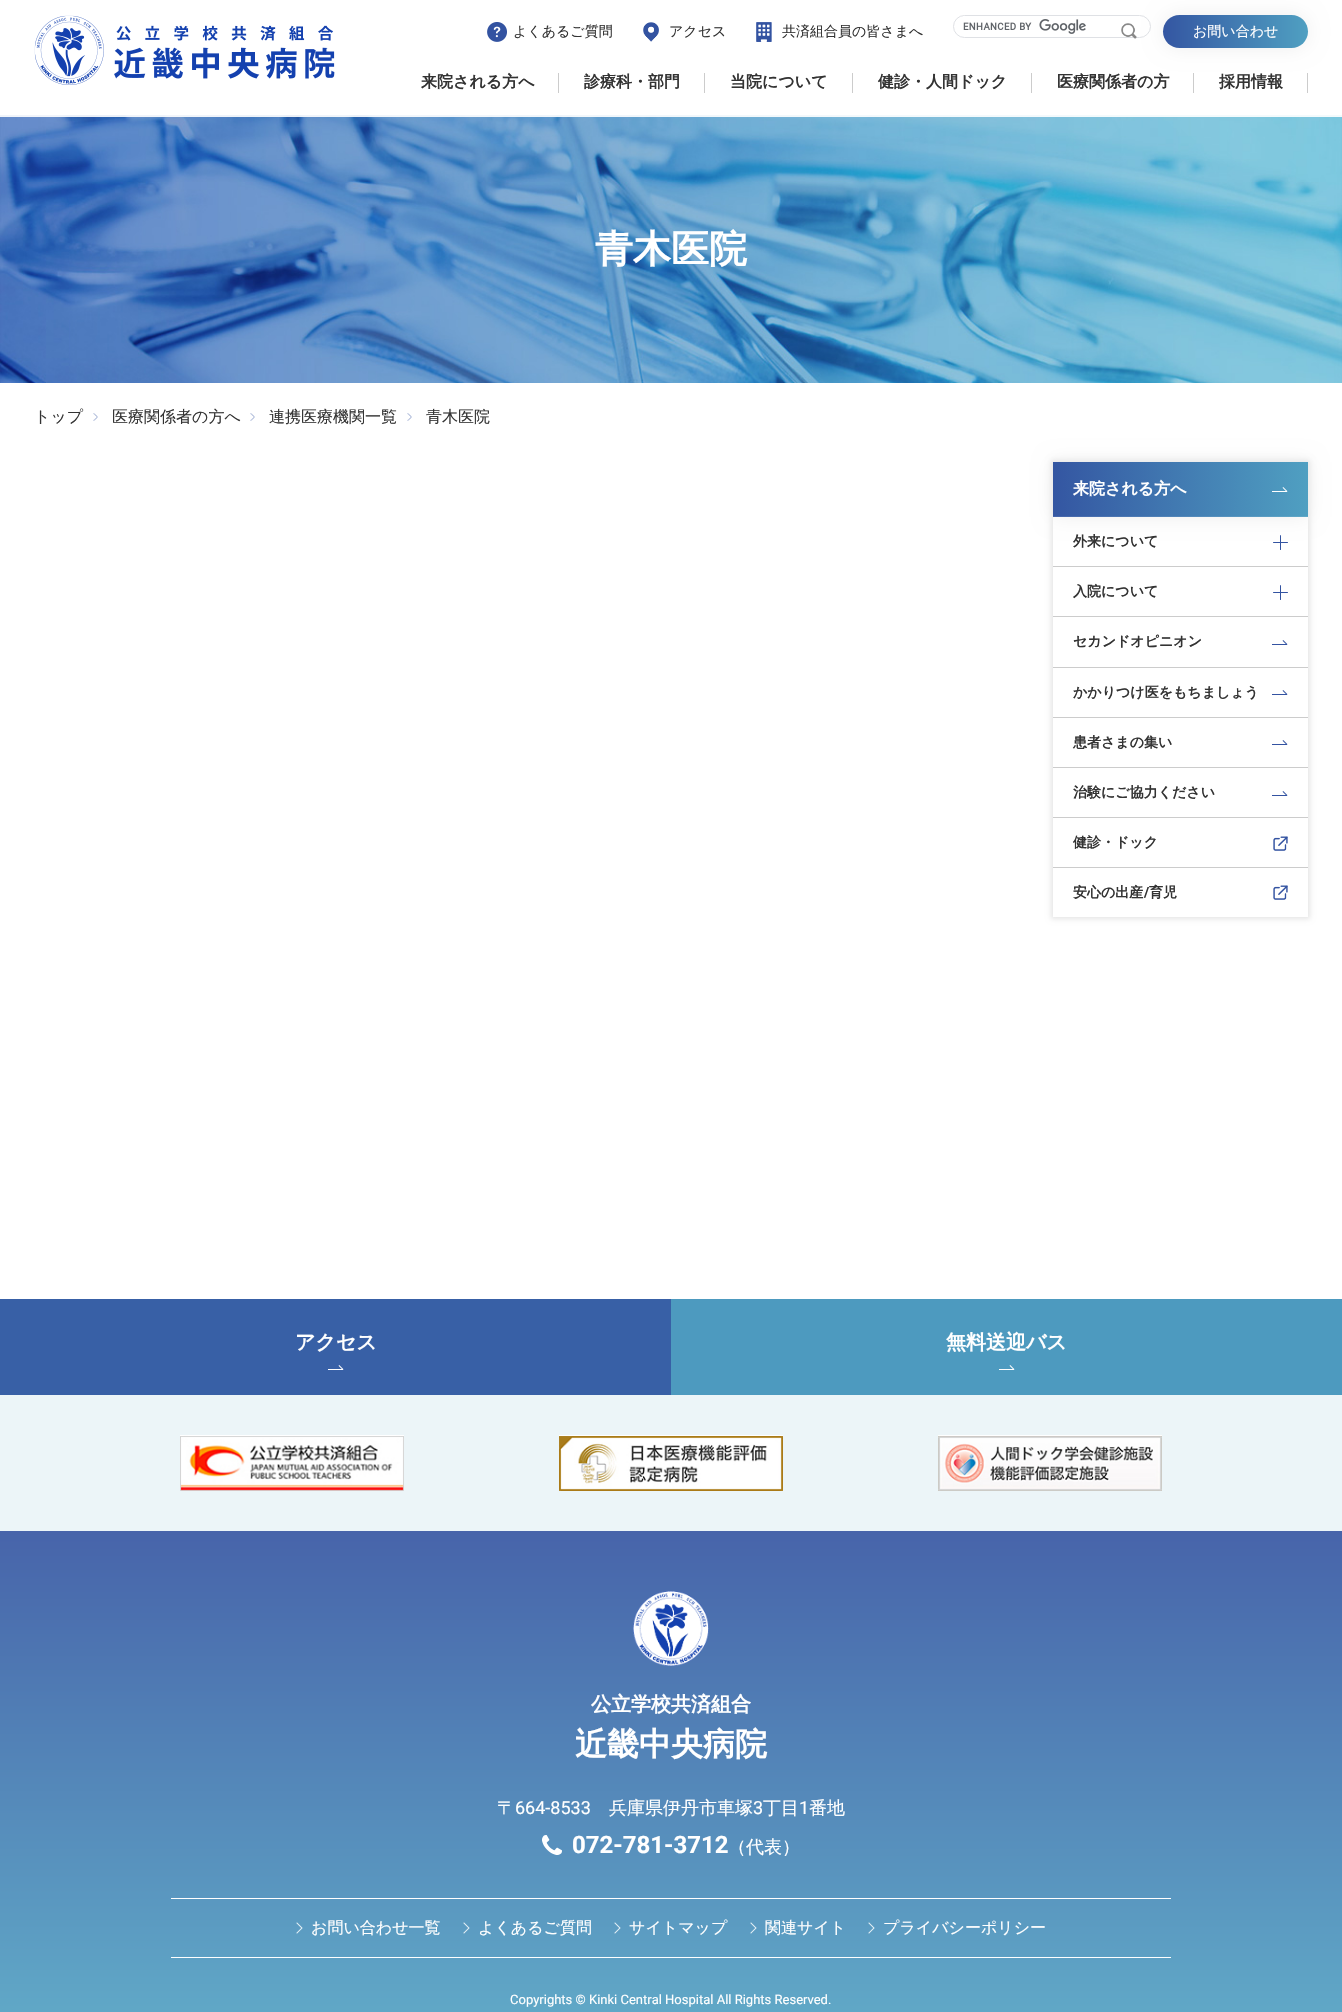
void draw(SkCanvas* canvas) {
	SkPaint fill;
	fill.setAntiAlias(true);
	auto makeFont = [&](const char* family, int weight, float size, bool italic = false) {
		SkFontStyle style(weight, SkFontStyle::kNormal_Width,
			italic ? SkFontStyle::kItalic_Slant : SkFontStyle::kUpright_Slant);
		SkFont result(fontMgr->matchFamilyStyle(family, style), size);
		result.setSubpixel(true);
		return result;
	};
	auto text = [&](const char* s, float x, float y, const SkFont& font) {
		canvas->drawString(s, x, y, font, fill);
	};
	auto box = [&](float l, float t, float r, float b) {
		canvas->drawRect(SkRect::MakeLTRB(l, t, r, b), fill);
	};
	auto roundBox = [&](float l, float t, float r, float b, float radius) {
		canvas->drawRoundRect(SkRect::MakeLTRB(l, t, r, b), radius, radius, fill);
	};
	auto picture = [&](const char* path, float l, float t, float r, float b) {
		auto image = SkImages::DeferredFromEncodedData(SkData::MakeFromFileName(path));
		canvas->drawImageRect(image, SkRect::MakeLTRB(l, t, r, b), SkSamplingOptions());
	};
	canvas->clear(0xFFFFFFFF);
	picture("image6.png", 0, 115, 1342, 383);
	fill.setColor(0xE6FFFFFF);
	box(0, 115, 1342, 117);
	picture("image0.png", 34, 15, 335, 85);
	picture("image1.png", 487, 22, 507, 42);
	picture("image2.png", 643, 22, 659, 42);
	picture("image3.png", 756, 22, 772, 42);
	fill.setColor(0xFFEEEEEE);
	fill.setMaskFilter(SkMaskFilter::MakeBlur(kNormal_SkBlurStyle, 10));
	canvas->drawRoundRect(SkRect::MakeLTRB(1163, 15, 1308, 48), 16.5f, 16.5f, fill);
	fill.setMaskFilter(nullptr);
	fill.setStyle(SkPaint::kStroke_Style);
	fill.setStrokeWidth(1);
	fill.setColor(0xFFDFE1E5);
	canvas->drawRoundRect(SkRect::MakeLTRB(953.5f, 15.5f, 1150.5f, 37.5f), 11, 11, fill);
	fill.setStyle(SkPaint::kFill_Style);
	fill.setColor(0xFFFFFFFF);
	box(963, 16, 964, 17);
	picture("image4.png", 963, 19, 1086, 34);
	picture("image5.png", 1121, 23, 1137, 39);
	{
		const SkColor colors[] = {0xFF3456A2, 0xFF50A1C2, 0xFF3456A2};
		const float stops[] = {0, 0.51f, 1};
		const SkPoint ends[] = {{1163, 32}, {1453, 31}};
		fill.setShader(SkGradientShader::MakeLinear(ends, colors, stops, 3, SkTileMode::kClamp));
		fill.setAlpha(255);
	}
	roundBox(1163, 15, 1308, 48, 16.5f);
	fill.setShader(nullptr);
	fill.setColor(0xFFCCCCCC);
	box(558, 73, 559, 93);
	box(704, 73, 705, 93);
	box(852, 73, 853, 93);
	box(1031, 73, 1032, 93);
	box(1193, 73, 1194, 93);
	box(1307, 73, 1308, 93);
	picture("image7.png", 93, 413, 98, 421);
	picture("image7.png", 250, 413, 255, 421);
	picture("image7.png", 407, 413, 412, 421);
	canvas->save();
	canvas->clipPath(SkPathBuilder(SkPathFillType::kEvenOdd).moveTo(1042, 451).lineTo(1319, 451).lineTo(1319, 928).lineTo(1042, 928).close().moveTo(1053, 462).lineTo(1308, 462).lineTo(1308, 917).lineTo(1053, 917).close().detach(), true);
	fill.setColor(0x1A000000);
	fill.setMaskFilter(SkMaskFilter::MakeBlur(kNormal_SkBlurStyle, 2.5f));
	canvas->drawRect(SkRect::MakeLTRB(1051, 460, 1310, 919), fill);
	fill.setMaskFilter(nullptr);
	canvas->restore();
	fill.setColor(0xFF3353A1);
	roundBox(1273, 542, 1288, 543, 0.5f);
	roundBox(1280, 535, 1281, 550, 0.5f);
	fill.setColor(0xFFEEEEEE);
	fill.setMaskFilter(SkMaskFilter::MakeBlur(kNormal_SkBlurStyle, 10));
	canvas->drawRect(SkRect::MakeLTRB(1053, 462, 1308, 517), fill);
	fill.setMaskFilter(nullptr);
	picture("image8.png", 1053, 462, 1308, 517);
	fill.setColor(0xFFCCCCCC);
	box(1053, 566, 1308, 567);
	box(1053, 616, 1308, 617);
	fill.setColor(0xFF3353A1);
	roundBox(1273, 592, 1288, 593, 0.5f);
	roundBox(1280, 585, 1281, 600, 0.5f);
	picture("image9.png", 1272, 640, 1288, 645);
	fill.setColor(0xFFCCCCCC);
	box(1053, 667, 1308, 668);
	picture("image9.png", 1272, 690, 1288, 695);
	box(1053, 717, 1308, 718);
	picture("image9.png", 1272, 740, 1288, 745);
	box(1053, 767, 1308, 768);
	picture("image9.png", 1272, 791, 1288, 796);
	box(1053, 817, 1308, 818);
	picture("image10.png", 1273, 836, 1288, 851);
	box(1053, 867, 1308, 868);
	picture("image10.png", 1273, 885, 1288, 900);
	fill.setColor(0xFF3860A6);
	box(0, 1299, 671, 1395);
	picture("image11.png", 328, 1365, 344, 1370);
	fill.setColor(0xFF4D9ABF);
	box(671, 1299, 1342, 1395);
	picture("image12.png", 999, 1365, 1015, 1370);
	fill.setColor(0xFFECF5F8);
	box(0, 1395, 1342, 1531);
	picture("image13.png", 180, 1435, 404, 1491);
	picture("image14.png", 559, 1435, 783, 1491);
	picture("image15.png", 938, 1435, 1162, 1491);
	{
		const SkColor colors[] = {0xFF4764AA, 0xFF62ADC9};
		const float stops[] = {0, 1};
		const SkPoint ends[] = {{671, 1531}, {671, 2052}};
		fill.setShader(SkGradientShader::MakeLinear(ends, colors, stops, 2, SkTileMode::kClamp));
		fill.setAlpha(255);
	}
	box(0, 1531, 1342, 2012);
	picture("image16.png", 633, 1591, 709, 1666);
	picture("image17.png", 542, 1835, 562, 1855);
	fill.setShader(nullptr);
	fill.setColor(0xFFFFFFFF);
	box(171, 1898, 1171, 1899);
	box(171, 1957, 1171, 1958);
	picture("image18.png", 296, 1922, 303, 1934);
	picture("image18.png", 463, 1922, 470, 1934);
	picture("image18.png", 614, 1922, 621, 1934);
	picture("image18.png", 750, 1922, 757, 1934);
	picture("image18.png", 868, 1922, 875, 1934);
	auto font1 = makeFont("WenQuanYi Zen Hei", 500, 14);
	fill.setColor(0xFF333333);
	text("よくあるご質問", 513, 36, font1);
	text("アクセス", 669, 36, font1);
	text("共済組合員の皆さまへ", 782, 36, font1);
	fill.setColor(0xFFFFFFFF);
	text("お問い合わせ", 1193, 36, font1);
	auto font2 = makeFont("WenQuanYi Zen Hei", 700, 16);
	fill.setColor(0xFF333333);
	text("来院される方へ", 421, 87, font2);
	text("診療科・部門", 584, 87, font2);
	text("当院について", 730, 87, font2);
	text("健診・⼈間ドック", 878, 87, font2);
	text("医療関係者の⽅", 1057, 87, font2);
	text("採用情報", 1219, 87, font2);
	auto font3 = makeFont("WenQuanYi Zen Hei", 700, 38);
	fill.setColor(0xFFFFFFFF);
	text("青木医院", 595, 262, font3);
	auto font4 = makeFont("WenQuanYi Zen Hei", 500, 16);
	fill.setColor(0xFF333333);
	text("トップ", 34, 422, font4);
	text("医療関係者の方へ", 112, 422, font4);
	text("連携医療機関一覧", 269, 422, font4);
	text("青木医院", 426, 422, font4);
	fill.setColor(0xFFFFFFFF);
	text("来院される方へ", 1073, 494, font2);
	auto font5 = makeFont("WenQuanYi Zen Hei", 700, 14);
	fill.setColor(0xFF333333);
	text("外来について", 1073, 546, font5);
	text("入院について", 1073, 596, font5);
	text("セカンドオピニオン", 1073, 646, font5);
	text("かかりつけ医をもちましょう", 1073, 697, font5);
	text("患者さまの集い", 1073, 747, font5);
	text("治験にご協力ください", 1073, 797, font5);
	text("健診・ドック", 1073, 847, font5);
	text("安心の出産", 1073, 897, font5);
	auto font6 = makeFont("Roboto", 700, 14);
	text("/", 1144, 897, font6);
	text("育児", 1149, 897, font5);
	auto font7 = makeFont("WenQuanYi Zen Hei", 700, 20);
	fill.setColor(0xFFFFFFFF);
	text("アクセス", 295, 1349, font7);
	text("無料送迎バス", 946, 1349, font7);
	text("公⽴学校共済組合", 591, 1711, font7);
	auto font8 = makeFont("WenQuanYi Zen Hei", 700, 32);
	text("近畿中央病院", 575, 1755, font8);
	auto font9 = makeFont("WenQuanYi Zen Hei", 500, 18);
	text("〒", 497, 1814, font9);
	auto font10 = makeFont("Roboto", 400, 18);
	text("664-8533", 515, 1814, font10);
	text("兵庫県伊丹市⾞塚", 609, 1814, font9);
	text("3", 753, 1814, font10);
	text("丁⽬", 763, 1814, font9);
	text("1", 799, 1814, font10);
	text("番地", 809, 1814, font9);
	auto font11 = makeFont("Roboto", 700, 24);
	text("072-781-3712", 572, 1853, font11);
	text("（代表）", 728, 1853, font9);
	text("お問い合わせ⼀覧", 311, 1933, font4);
	text("よくあるご質問", 478, 1933, font4);
	text("サイトマップ", 629, 1933, font4);
	text("関連サイト", 765, 1933, font4);
	text("プライバシーポリシー", 883, 1933, font4);
	auto font12 = makeFont("Roboto", 400, 13);
	text("Copyrights © Kinki Central Hospital All Rights Reserved.", 510, 2004, font12);
}
